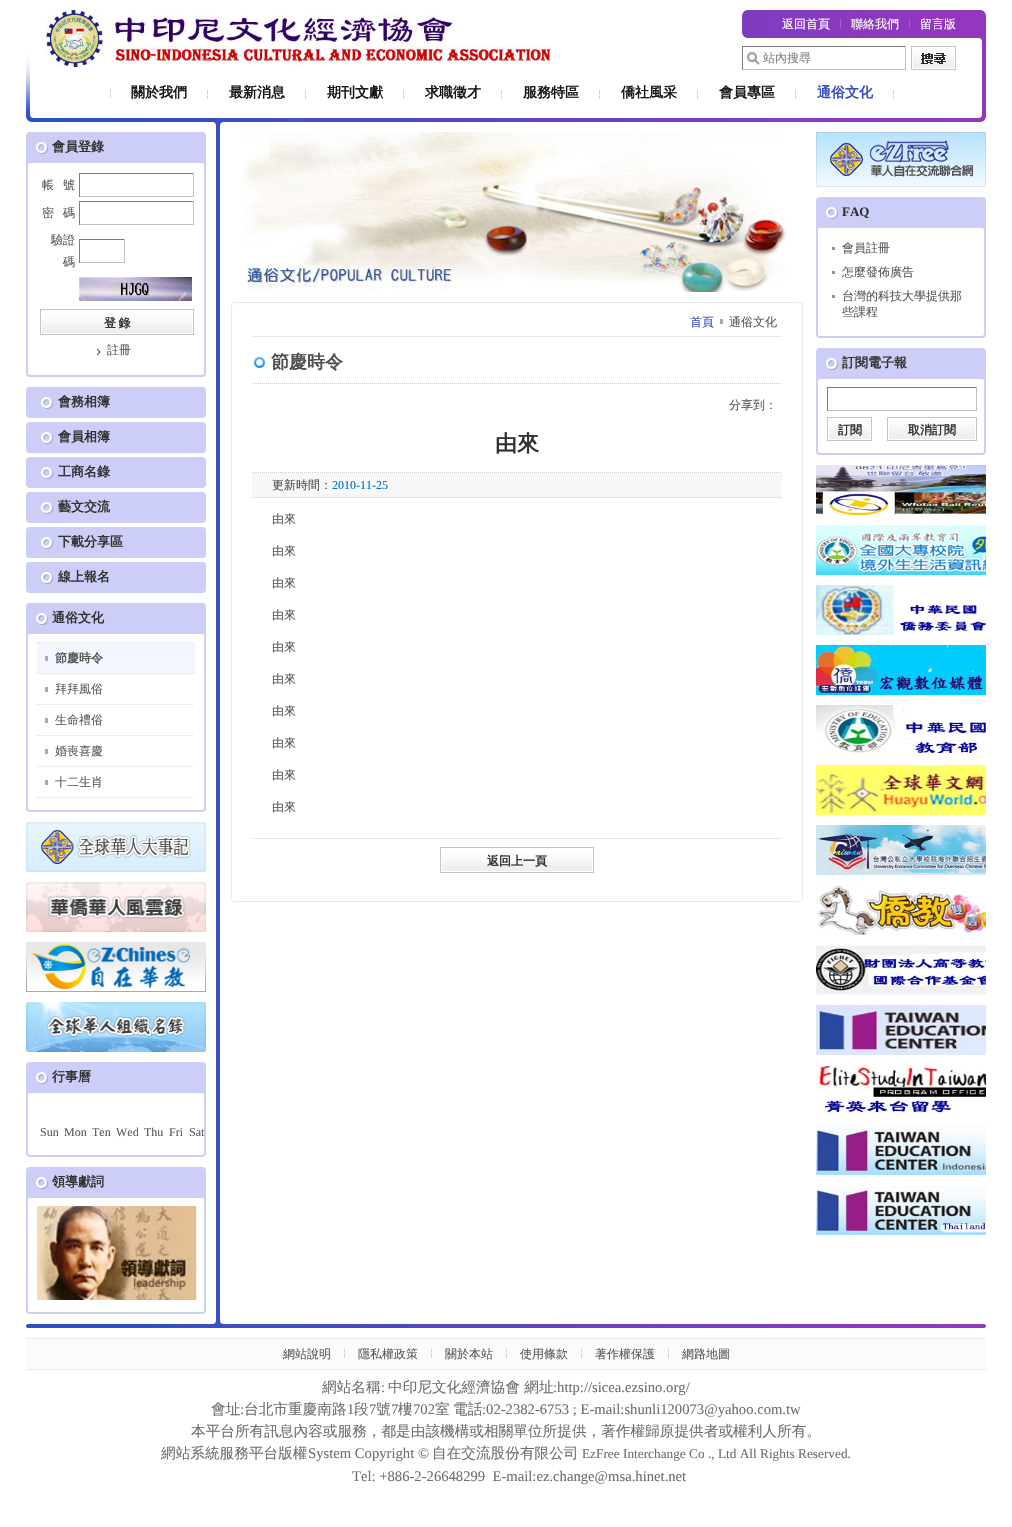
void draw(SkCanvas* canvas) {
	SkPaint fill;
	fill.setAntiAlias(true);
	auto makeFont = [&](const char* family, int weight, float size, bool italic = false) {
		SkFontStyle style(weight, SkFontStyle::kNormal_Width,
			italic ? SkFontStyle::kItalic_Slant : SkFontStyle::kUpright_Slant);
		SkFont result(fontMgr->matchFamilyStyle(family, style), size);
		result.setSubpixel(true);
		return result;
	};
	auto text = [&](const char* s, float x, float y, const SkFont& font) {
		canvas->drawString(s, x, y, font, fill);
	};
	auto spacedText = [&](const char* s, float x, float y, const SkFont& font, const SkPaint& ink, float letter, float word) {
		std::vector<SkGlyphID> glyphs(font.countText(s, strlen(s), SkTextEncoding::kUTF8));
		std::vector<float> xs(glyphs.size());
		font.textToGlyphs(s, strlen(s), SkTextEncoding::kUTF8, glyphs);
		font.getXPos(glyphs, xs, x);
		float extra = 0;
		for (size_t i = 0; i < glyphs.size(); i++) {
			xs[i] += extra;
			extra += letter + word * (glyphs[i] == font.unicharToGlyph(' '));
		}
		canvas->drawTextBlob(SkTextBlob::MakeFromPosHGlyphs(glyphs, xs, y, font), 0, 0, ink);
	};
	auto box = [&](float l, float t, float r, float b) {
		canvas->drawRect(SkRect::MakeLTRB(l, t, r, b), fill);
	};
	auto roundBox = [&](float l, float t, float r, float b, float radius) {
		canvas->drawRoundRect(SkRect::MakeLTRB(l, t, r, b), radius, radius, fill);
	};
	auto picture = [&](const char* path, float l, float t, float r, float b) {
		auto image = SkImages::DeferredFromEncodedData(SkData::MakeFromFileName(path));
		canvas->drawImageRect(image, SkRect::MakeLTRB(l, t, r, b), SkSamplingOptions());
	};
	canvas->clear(0xFFFFFFFF);
	picture("image0.png", 26, 10, 986, 126);
	picture("image1.png", 46, 10, 553, 67);
	fill.setColor(0xFFB258DF);
	box(840, 19, 841, 28);
	box(909, 19, 910, 28);
	picture("image2.png", 747, 52, 760, 66);
	fill.setColor(0xFF7D7D7D);
	box(742, 46, 906, 47);
	fill.setColor(0xFFBFBFBF);
	box(905, 46, 906, 70);
	box(742, 69, 906, 70);
	fill.setColor(0xFF7D7D7D);
	box(742, 46, 743, 70);
	picture("image3.png", 911, 46, 956, 70);
	picture("image4.png", 110, 89, 111, 98);
	picture("image4.png", 207, 90, 208, 99);
	picture("image4.png", 305, 90, 306, 99);
	picture("image4.png", 403, 90, 404, 99);
	picture("image4.png", 501, 90, 502, 99);
	picture("image4.png", 599, 90, 600, 99);
	picture("image4.png", 697, 90, 698, 99);
	picture("image4.png", 795, 90, 796, 99);
	picture("image4.png", 893, 90, 894, 99);
	fill.setColor(0xFF3A4EC2);
	box(216, 126, 220, 1314);
	fill.setColor(0xFFCCCEF8);
	roundBox(26, 132, 206, 377, 4);
	picture("image5.png", 36, 142, 48, 154);
	fill.setColor(0xFFFFFFFF);
	roundBox(28, 163, 204, 375, 2);
	fill.setColor(0xFF7D7D7D);
	box(79, 173, 194, 174);
	fill.setColor(0xFFBFBFBF);
	box(193, 173, 194, 197);
	box(79, 196, 194, 197);
	fill.setColor(0xFF7D7D7D);
	box(79, 173, 80, 197);
	box(79, 201, 194, 202);
	fill.setColor(0xFFBFBFBF);
	box(193, 201, 194, 225);
	box(79, 224, 194, 225);
	fill.setColor(0xFF7D7D7D);
	box(79, 201, 80, 225);
	box(79, 239, 125, 240);
	fill.setColor(0xFFBFBFBF);
	box(124, 239, 125, 263);
	box(79, 262, 125, 263);
	fill.setColor(0xFF7D7D7D);
	box(79, 239, 80, 263);
	picture("image6.png", 79, 277, 192, 301);
	picture("image7.png", 40, 309, 194, 335);
	picture("image8.png", 97, 348, 101, 356);
	fill.setColor(0xFFCCCEF8);
	roundBox(26, 387, 206, 418, 4);
	picture("image5.png", 41, 397, 53, 409);
	roundBox(26, 422, 206, 453, 4);
	picture("image5.png", 41, 432, 53, 444);
	roundBox(26, 457, 206, 488, 4);
	picture("image5.png", 41, 467, 53, 479);
	roundBox(26, 492, 206, 523, 4);
	picture("image5.png", 41, 502, 53, 514);
	roundBox(26, 527, 206, 558, 4);
	picture("image5.png", 41, 537, 53, 549);
	roundBox(26, 562, 206, 593, 4);
	picture("image5.png", 41, 572, 53, 584);
	roundBox(26, 603, 206, 812, 4);
	picture("image5.png", 36, 613, 48, 625);
	fill.setColor(0xFFFFFFFF);
	roundBox(28, 634, 204, 810, 2);
	fill.setStyle(SkPaint::kStroke_Style);
	fill.setStrokeWidth(1);
	fill.setColor(0xFFDCDCDC);
	fill.setPathEffect(SkDashPathEffect::Make({{1, 1}}, 0));
	canvas->drawPath(SkPathBuilder().moveTo(37, 642.5f).lineTo(195, 642.5f).detach(), fill);
	fill.setPathEffect(nullptr);
	fill.setStyle(SkPaint::kFill_Style);
	fill.setColor(0xFFF3F5FF);
	box(37, 643, 195, 674);
	fill.setColor(0xFFA9A9A9);
	box(45, 656, 48, 661);
	fill.setStyle(SkPaint::kStroke_Style);
	fill.setColor(0xFFDCDCDC);
	fill.setPathEffect(SkDashPathEffect::Make({{1, 1}}, 0));
	canvas->drawPath(SkPathBuilder().moveTo(37, 673.5f).lineTo(195, 673.5f).detach(), fill);
	fill.setPathEffect(nullptr);
	fill.setStyle(SkPaint::kFill_Style);
	fill.setColor(0xFFA9A9A9);
	box(45, 687, 48, 692);
	fill.setStyle(SkPaint::kStroke_Style);
	fill.setColor(0xFFDCDCDC);
	fill.setPathEffect(SkDashPathEffect::Make({{1, 1}}, 0));
	canvas->drawPath(SkPathBuilder().moveTo(37, 704.5f).lineTo(195, 704.5f).detach(), fill);
	fill.setPathEffect(nullptr);
	fill.setStyle(SkPaint::kFill_Style);
	fill.setColor(0xFFA9A9A9);
	box(45, 718, 48, 723);
	fill.setStyle(SkPaint::kStroke_Style);
	fill.setColor(0xFFDCDCDC);
	fill.setPathEffect(SkDashPathEffect::Make({{1, 1}}, 0));
	canvas->drawPath(SkPathBuilder().moveTo(37, 735.5f).lineTo(195, 735.5f).detach(), fill);
	fill.setPathEffect(nullptr);
	fill.setStyle(SkPaint::kFill_Style);
	fill.setColor(0xFFA9A9A9);
	box(45, 749, 48, 754);
	fill.setStyle(SkPaint::kStroke_Style);
	fill.setColor(0xFFDCDCDC);
	fill.setPathEffect(SkDashPathEffect::Make({{1, 1}}, 0));
	canvas->drawPath(SkPathBuilder().moveTo(37, 766.5f).lineTo(195, 766.5f).detach(), fill);
	fill.setPathEffect(nullptr);
	fill.setStyle(SkPaint::kFill_Style);
	fill.setColor(0xFFA9A9A9);
	box(45, 780, 48, 785);
	fill.setStyle(SkPaint::kStroke_Style);
	fill.setColor(0xFFDCDCDC);
	fill.setPathEffect(SkDashPathEffect::Make({{1, 1}}, 0));
	canvas->drawPath(SkPathBuilder().moveTo(37, 797.5f).lineTo(195, 797.5f).detach(), fill);
	fill.setPathEffect(nullptr);
	picture("image9.png", 26, 822, 206, 872);
	picture("image10.png", 26, 882, 206, 932);
	picture("image11.png", 26, 942, 206, 992);
	picture("image12.png", 26, 1002, 206, 1052);
	fill.setStyle(SkPaint::kFill_Style);
	fill.setColor(0xFFCCCEF8);
	roundBox(26, 1062, 206, 1157, 4);
	picture("image5.png", 36, 1072, 48, 1084);
	fill.setColor(0xFFFFFFFF);
	roundBox(28, 1093, 204, 1155, 2);
	fill.setColor(0xFFCCCEF8);
	roundBox(26, 1167, 206, 1314, 4);
	picture("image5.png", 36, 1177, 48, 1189);
	fill.setColor(0xFFFFFFFF);
	roundBox(28, 1198, 204, 1312, 2);
	picture("image13.png", 37, 1206, 197, 1300);
	picture("image14.png", 241, 132, 786, 292);
	fill.setStyle(SkPaint::kStroke_Style);
	fill.setColor(0xFFEAEAEA);
	canvas->drawRoundRect(SkRect::MakeLTRB(231.5f, 302.5f, 802.5f, 901.5f), 3.5f, 3.5f, fill);
	fill.setStyle(SkPaint::kFill_Style);
	fill.setColor(0xFFE8E8E8);
	box(252, 336, 782, 337);
	fill.setColor(0xFFA9A9A9);
	box(720, 319, 723, 324);
	picture("image15.png", 254, 357, 265, 368);
	fill.setStyle(SkPaint::kStroke_Style);
	fill.setColor(0xFFCDCDCD);
	fill.setPathEffect(SkDashPathEffect::Make({{1, 1}}, 0));
	canvas->drawPath(SkPathBuilder().moveTo(252, 383.5f).lineTo(782, 383.5f).detach(), fill);
	fill.setPathEffect(nullptr);
	fill.setPathEffect(SkDashPathEffect::Make({{1, 1}}, 0));
	canvas->drawPath(SkPathBuilder().moveTo(252, 472.5f).lineTo(782, 472.5f).detach(), fill);
	fill.setPathEffect(nullptr);
	fill.setStyle(SkPaint::kFill_Style);
	fill.setColor(0xFFF7F7F7);
	box(252, 473, 782, 498);
	fill.setStyle(SkPaint::kStroke_Style);
	fill.setColor(0xFFCDCDCD);
	fill.setPathEffect(SkDashPathEffect::Make({{1, 1}}, 0));
	canvas->drawPath(SkPathBuilder().moveTo(252, 497.5f).lineTo(782, 497.5f).detach(), fill);
	fill.setPathEffect(nullptr);
	fill.setPathEffect(SkDashPathEffect::Make({{1, 1}}, 0));
	canvas->drawPath(SkPathBuilder().moveTo(252, 838.5f).lineTo(782, 838.5f).detach(), fill);
	fill.setPathEffect(nullptr);
	picture("image7.png", 440, 847, 594, 873);
	picture("image16.png", 816, 132, 986, 187);
	fill.setStyle(SkPaint::kFill_Style);
	fill.setColor(0xFFCCCEF8);
	roundBox(816, 197, 986, 338, 4);
	picture("image5.png", 826, 207, 838, 219);
	fill.setColor(0xFFFFFFFF);
	roundBox(818, 228, 984, 336, 2);
	fill.setColor(0xFF939594);
	box(832, 247, 835, 250);
	box(832, 271, 835, 274);
	box(832, 295, 835, 298);
	fill.setColor(0xFFCCCEF8);
	roundBox(816, 348, 986, 455, 4);
	picture("image5.png", 826, 358, 838, 370);
	fill.setColor(0xFFFFFFFF);
	roundBox(818, 379, 984, 453, 2);
	fill.setColor(0xFF7D7D7D);
	box(827, 387, 977, 388);
	fill.setColor(0xFFBFBFBF);
	box(976, 387, 977, 411);
	box(827, 410, 977, 411);
	fill.setColor(0xFF7D7D7D);
	box(827, 387, 828, 411);
	picture("image17.png", 827, 417, 872, 441);
	picture("image18.png", 887, 417, 977, 441);
	picture("image19.png", 816, 465, 986, 515);
	picture("image20.png", 816, 525, 986, 575);
	picture("image21.png", 816, 585, 986, 635);
	picture("image22.png", 816, 645, 986, 695);
	picture("image23.png", 816, 705, 986, 755);
	picture("image24.png", 816, 765, 986, 815);
	picture("image25.png", 816, 825, 986, 875);
	picture("image26.png", 816, 885, 986, 935);
	picture("image27.png", 816, 945, 986, 995);
	picture("image28.png", 816, 1005, 986, 1055);
	picture("image29.png", 816, 1065, 986, 1115);
	picture("image30.png", 816, 1125, 986, 1175);
	picture("image31.png", 816, 1185, 986, 1235);
	picture("image32.png", 26, 1314, 986, 1328);
	fill.setColor(0xFFFBFBFB);
	box(26, 1339, 986, 1369);
	fill.setColor(0xFFECECEC);
	box(26, 1338, 986, 1339);
	box(26, 1369, 986, 1370);
	picture("image4.png", 344, 1349, 345, 1358);
	picture("image4.png", 431, 1349, 432, 1358);
	picture("image4.png", 506, 1349, 507, 1358);
	picture("image4.png", 581, 1349, 582, 1358);
	picture("image4.png", 668, 1349, 669, 1358);
	auto font1 = makeFont("WenQuanYi Zen Hei", 500, 12);
	fill.setColor(0xFFFFFFFF);
	text("返回首頁", 782, 28, font1);
	text("聯絡我們", 851, 28, font1);
	text("留言版", 920, 28, font1);
	fill.setColor(0xFF808080);
	text("站內搜尋", 763, 62, font1);
	auto font2 = makeFont("WenQuanYi Zen Hei", 700, 14);
	fill.setColor(0xFF171717);
	text("關於我們", 131, 97, font2);
	text("最新消息", 229, 97, font2);
	text("期刊文獻", 327, 97, font2);
	text("求職徵才", 425, 97, font2);
	text("服務特區", 523, 97, font2);
	text("僑社風采", 621, 97, font2);
	text("會員專區", 719, 97, font2);
	fill.setColor(0xFF394EC2);
	text("通俗文化", 817, 97, font2);
	auto font3 = makeFont("WenQuanYi Zen Hei", 700, 13);
	fill.setColor(0xFF333333);
	text("會員登錄", 52, 151, font3);
	fill.setColor(0xFF595959);
	text("帳", 42, 189, font1);
	text("號", 63, 189, font1);
	text("密", 42, 217, font1);
	text("碼", 63, 217, font1);
	text("驗證", 51, 244, font1);
	text("碼", 63, 266, font1);
	auto font4 = makeFont("WenQuanYi Zen Hei", 700, 12);
	fill.setColor(0xFF333333);
	spacedText("登 錄", 104, 327, font4, fill, 0, -1);
	fill.setColor(0xFF595959);
	text("註冊", 107, 354, font1);
	fill.setColor(0xFF333333);
	text("會務相簿", 58, 406, font3);
	text("會員相簿", 58, 441, font3);
	text("工商名錄", 58, 476, font3);
	text("藝文交流", 58, 511, font3);
	text("下載分享區", 58, 546, font3);
	text("線上報名", 58, 581, font3);
	text("通俗文化", 52, 622, font3);
	fill.setColor(0xFF595959);
	text("節慶時令", 55, 662, font4);
	text("拜拜風俗", 55, 693, font1);
	text("生命禮俗", 55, 724, font1);
	text("婚喪喜慶", 55, 755, font1);
	text("十二生肖", 55, 786, font1);
	fill.setColor(0xFF333333);
	text("行事曆", 52, 1081, font3);
	auto font5 = makeFont("Liberation Serif", 400, 12);
	fill.setColor(0xFF595959);
	text("Sun", 40, 1136, font5);
	text("Mon", 64, 1136, font5);
	text("Ten", 92, 1136, font5);
	text("Wed", 116, 1136, font5);
	text("Thu", 144, 1136, font5);
	text("Fri", 169, 1136, font5);
	text("Sat", 189, 1136, font5);
	fill.setColor(0xFF333333);
	text("領導獻詞", 52, 1186, font3);
	fill.setColor(0xFF394EC2);
	text("首頁", 690, 326, font1);
	fill.setColor(0xFF595959);
	text("通俗文化", 729, 326, font1);
	auto font6 = makeFont("WenQuanYi Zen Hei", 700, 18);
	fill.setColor(0xFF4E4E4E);
	text("節慶時令", 271, 368, font6);
	fill.setColor(0xFF595959);
	text("分享到：", 729, 409, font1);
	auto font7 = makeFont("WenQuanYi Zen Hei", 700, 22);
	fill.setColor(0xFF333333);
	text("由來", 495, 451, font7);
	fill.setColor(0xFF4E4E4E);
	text("更新時間：", 272, 489, font1);
	fill.setColor(0xFF006ECC);
	text("2010-11-25", 332, 489, font5);
	fill.setColor(0xFF595959);
	text("由來", 272, 523, font1);
	text("由來", 272, 555, font1);
	text("由來", 272, 587, font1);
	text("由來", 272, 619, font1);
	text("由來", 272, 651, font1);
	text("由來", 272, 683, font1);
	text("由來", 272, 715, font1);
	text("由來", 272, 747, font1);
	text("由來", 272, 779, font1);
	text("由來", 272, 811, font1);
	fill.setColor(0xFF333333);
	text("返回上一頁", 487, 865, font4);
	auto font8 = makeFont("Liberation Serif", 700, 13);
	text("FAQ", 842, 216, font8);
	fill.setColor(0xFF595959);
	text("會員註冊", 842, 252, font1);
	text("怎麼發佈廣告", 842, 276, font1);
	text("台灣的科技大學提供那", 842, 300, font1);
	text("些課程", 842, 316, font1);
	fill.setColor(0xFF333333);
	text("訂閱電子報", 842, 367, font3);
	text("訂閱", 838, 434, font4);
	text("取消訂閱", 908, 434, font4);
	fill.setColor(0xFF595959);
	text("網站說明", 283, 1358, font1);
	text("隱私權政策", 358, 1358, font1);
	text("關於本站", 445, 1358, font1);
	text("使用條款", 520, 1358, font1);
	text("著作權保護", 595, 1358, font1);
	text("網路地圖", 682, 1358, font1);
	auto font9 = makeFont("WenQuanYi Zen Hei", 500, 14.65f);
	fill.setColor(0xFF6F6F6F);
	text("網站名稱", 322, 1392, font9);
	auto font10 = makeFont("Liberation Serif", 400, 14.65f);
	text(":", 381, 1392, font10);
	text("中印尼文化經濟協會 網址", 388, 1392, font9);
	text(":http://sicea.ezsino.org/", 553, 1392, font10);
	text("會址", 211, 1414, font9);
	text(":", 240, 1414, font10);
	text("台北市重慶南路", 244, 1414, font9);
	text("1", 347, 1414, font10);
	text("段", 354, 1414, font9);
	text("7", 369, 1414, font10);
	text("號", 376, 1414, font9);
	text("7", 391, 1414, font10);
	text("樓", 398, 1414, font9);
	text("702", 413, 1414, font10);
	text("室", 435, 1414, font9);
	text("電話", 453, 1414, font9);
	text(":02-2382-6753 ; E-mail:shunli120073@yahoo.com.tw", 482, 1414, font10);
	text("本平台所有訊息內容或服務，都是由該機構或相關單位所提供，著作權歸原提供者或權利人所有。", 191, 1436, font9);
	text("網站系統服務平台版權", 161, 1458, font9);
	text("System Copyright ©", 308, 1458, font10);
	text("自在交流股份有限公司", 432, 1458, font9);
	auto font11 = makeFont("Liberation Serif", 400, 13.3f);
	text("EzFree Interchange Co ., Ltd All Rights Reserved.", 582, 1458, font11);
	text("Tel: +886-2-26648299  E-mail:ez.change@msa.hinet.net", 352, 1481, font10);
}
